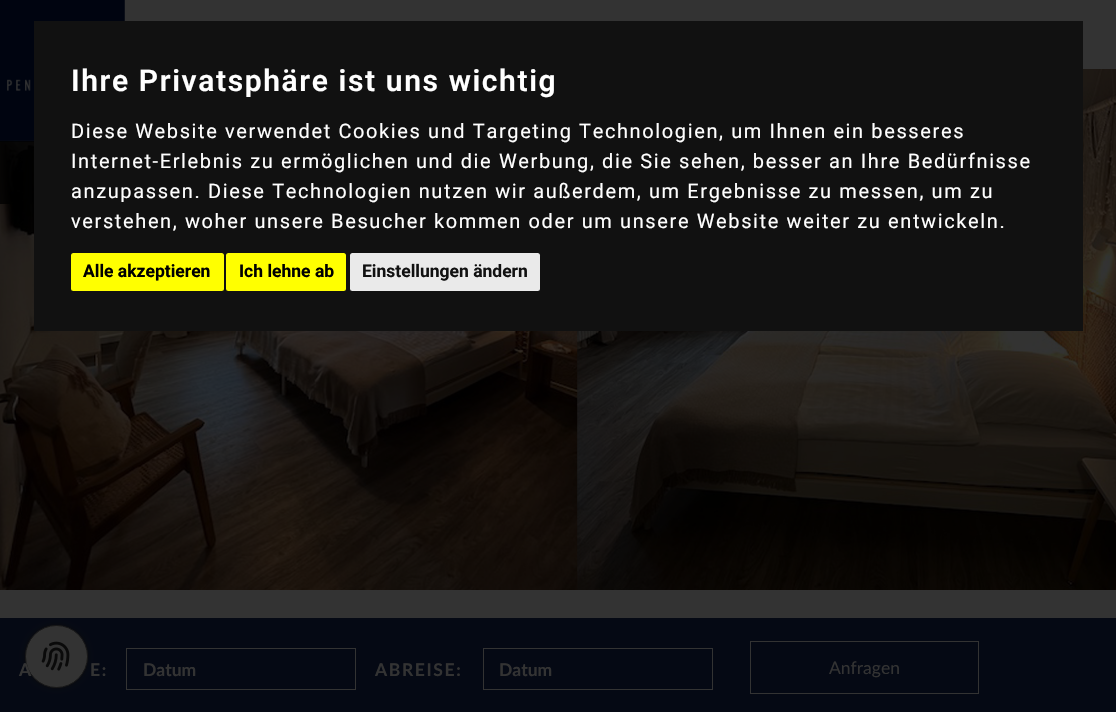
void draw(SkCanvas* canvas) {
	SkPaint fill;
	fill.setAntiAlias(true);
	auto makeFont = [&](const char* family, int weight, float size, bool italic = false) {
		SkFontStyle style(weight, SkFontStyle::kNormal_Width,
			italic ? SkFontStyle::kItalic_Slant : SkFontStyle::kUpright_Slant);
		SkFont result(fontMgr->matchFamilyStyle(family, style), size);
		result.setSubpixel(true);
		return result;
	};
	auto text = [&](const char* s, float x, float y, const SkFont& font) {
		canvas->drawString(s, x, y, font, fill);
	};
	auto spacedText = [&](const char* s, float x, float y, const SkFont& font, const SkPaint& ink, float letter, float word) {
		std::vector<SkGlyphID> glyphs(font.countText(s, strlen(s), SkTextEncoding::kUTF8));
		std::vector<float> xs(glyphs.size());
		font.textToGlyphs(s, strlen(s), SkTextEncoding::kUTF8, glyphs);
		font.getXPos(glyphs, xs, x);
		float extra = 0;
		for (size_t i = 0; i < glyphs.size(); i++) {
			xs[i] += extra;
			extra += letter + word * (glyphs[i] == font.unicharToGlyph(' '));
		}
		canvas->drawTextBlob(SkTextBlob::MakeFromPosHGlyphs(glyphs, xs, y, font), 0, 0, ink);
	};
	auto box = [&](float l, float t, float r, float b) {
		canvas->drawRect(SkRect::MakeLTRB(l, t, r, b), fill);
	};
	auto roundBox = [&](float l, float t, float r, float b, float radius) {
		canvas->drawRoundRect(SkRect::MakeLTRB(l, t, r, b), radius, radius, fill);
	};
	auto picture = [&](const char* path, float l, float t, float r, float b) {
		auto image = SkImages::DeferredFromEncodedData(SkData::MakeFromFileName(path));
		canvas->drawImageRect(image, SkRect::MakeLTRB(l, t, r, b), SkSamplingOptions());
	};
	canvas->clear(0xFF333333);
	fill.setColor(0xFF050914);
	box(0, 618, 1116, 712);
	picture("image1.png", 0, 69, 1116, 590);
	picture("image0.png", 0, 0, 125, 142);
	fill.setColor(0xCC000000);
	box(0, 141, 34, 204);
	fill.setColor(0xFF111111);
	box(34, 21, 1083, 331);
	fill.setColor(0xFFFFFF00);
	roundBox(71, 253, 224, 291, 2.5f);
	roundBox(226, 253, 346, 291, 2.5f);
	fill.setColor(0xFFEAEAEA);
	roundBox(350, 253, 540, 291, 2.5f);
	fill.setColor(0xFF0B0B0B);
	fill.setMaskFilter(SkMaskFilter::MakeBlur(kNormal_SkBlurStyle, 2.5f));
	canvas->drawRoundRect(SkRect::MakeLTRB(25, 625, 88, 688), 31.5f, 31.5f, fill);
	fill.setMaskFilter(nullptr);
	fill.setColor(0xFF333333);
	canvas->drawCircle(56.5f, 656.5f, 31, fill);
	fill.setStyle(SkPaint::kStroke_Style);
	fill.setStrokeWidth(1);
	fill.setColor(0xFF171717);
	canvas->drawCircle(56.5f, 656.5f, 31, fill);
	picture("image2.png", 41, 641, 70, 671);
	fill.setColor(0xFF333333);
	canvas->drawRect(SkRect::MakeLTRB(126.5f, 648.5f, 355.5f, 689.5f), fill);
	canvas->drawRect(SkRect::MakeLTRB(483.5f, 648.5f, 712.5f, 689.5f), fill);
	canvas->drawRect(SkRect::MakeLTRB(750.5f, 641.5f, 978.5f, 693.5f), fill);
	auto font1 = makeFont("Roboto", 600, 30);
	fill.setStyle(SkPaint::kFill_Style);
	fill.setColor(0xFFFFFFFF);
	spacedText("Ihre Privatsphäre ist uns wichtig", 71, 91, font1, fill, 1.62f, 0);
	auto font2 = makeFont("Roboto", 400, 20);
	spacedText("Diese Website verwendet Cookies und Targeting Technologien, um Ihnen ein besseres", 71, 138, font2, fill, 1.62f, 0);
	spacedText("Internet-Erlebnis zu ermöglichen und die Werbung, die Sie sehen, besser an Ihre Bedürfnisse", 71, 168, font2, fill, 1.62f, 0);
	spacedText("anzupassen. Diese Technologien nutzen wir außerdem, um Ergebnisse zu messen, um zu", 71, 198, font2, fill, 1.62f, 0);
	spacedText("verstehen, woher unsere Besucher kommen oder um unsere Website weiter zu entwickeln.", 71, 228, font2, fill, 1.62f, 0);
	auto font3 = makeFont("Roboto", 700, 17.5f);
	fill.setColor(0xFF000000);
	text("Alle akzeptieren", 83, 277, font3);
	text("Ich lehne ab", 239, 277, font3);
	fill.setColor(0xFF111111);
	text("Einstellungen ändern", 362, 277, font3);
	auto font4 = makeFont("Lato", 700, 17.5f);
	fill.setColor(0xFF333333);
	spacedText("A", 19, 676, font4, fill, 1.62f, 0);
	spacedText("E:", 90, 676, font4, fill, 1.62f, 0);
	text("Datum", 143, 676, font4);
	spacedText("ABREISE:", 375, 676, font4, fill, 1.62f, 0);
	text("Datum", 499, 676, font4);
	auto font5 = makeFont("Lato", 400, 17.5f);
	text("Anfragen", 829, 674, font5);
}
